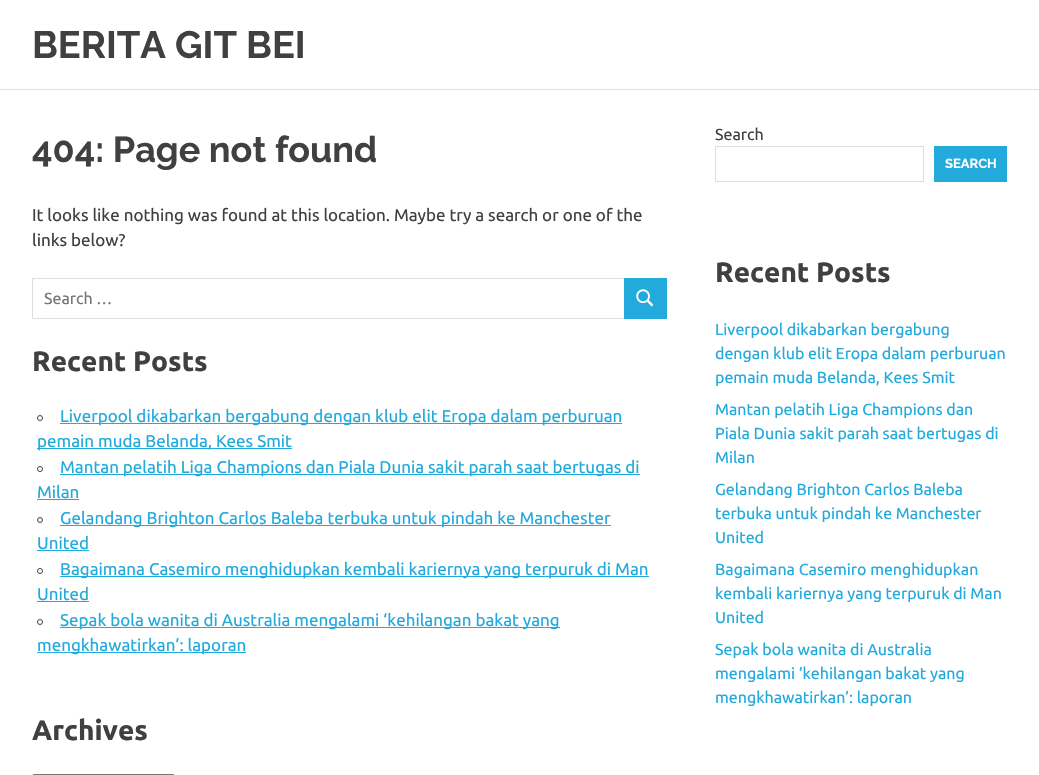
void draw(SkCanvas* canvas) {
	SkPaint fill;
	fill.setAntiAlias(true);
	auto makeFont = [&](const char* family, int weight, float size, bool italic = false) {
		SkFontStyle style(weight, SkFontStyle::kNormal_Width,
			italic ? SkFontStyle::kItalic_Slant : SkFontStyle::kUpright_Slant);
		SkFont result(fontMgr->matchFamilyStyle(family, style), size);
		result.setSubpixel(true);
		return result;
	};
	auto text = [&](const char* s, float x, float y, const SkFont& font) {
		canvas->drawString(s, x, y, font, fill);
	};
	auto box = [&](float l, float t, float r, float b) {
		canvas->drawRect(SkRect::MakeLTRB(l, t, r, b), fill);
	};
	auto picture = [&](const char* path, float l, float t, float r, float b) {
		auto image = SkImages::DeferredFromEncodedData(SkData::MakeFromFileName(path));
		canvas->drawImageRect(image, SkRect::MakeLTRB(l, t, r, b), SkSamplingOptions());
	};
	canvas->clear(0xFFFFFFFF);
	fill.setColor(0xFFE0E0E0);
	box(0, 89, 1039, 90);
	fill.setStyle(SkPaint::kStroke_Style);
	fill.setStrokeWidth(1);
	fill.setColor(0xFFDDDDDD);
	canvas->drawRect(SkRect::MakeLTRB(32.5f, 278.5f, 624.5f, 318.5f), fill);
	fill.setStyle(SkPaint::kFill_Style);
	fill.setColor(0xFF22AADD);
	box(624, 278, 667, 319);
	picture("image0.png", 636, 289, 654, 307);
	fill.setStyle(SkPaint::kStroke_Style);
	fill.setColor(0xFF404040);
	canvas->drawCircle(40, 418, 2.5f, fill);
	fill.setStyle(SkPaint::kFill_Style);
	fill.setColor(0xFF22AADD);
	box(60, 423, 622, 424);
	box(37, 448, 292, 449);
	fill.setStyle(SkPaint::kStroke_Style);
	fill.setColor(0xFF404040);
	canvas->drawCircle(40, 469, 2.5f, fill);
	fill.setStyle(SkPaint::kFill_Style);
	fill.setColor(0xFF22AADD);
	box(60, 474, 640, 475);
	box(37, 499, 79, 500);
	fill.setStyle(SkPaint::kStroke_Style);
	fill.setColor(0xFF404040);
	canvas->drawCircle(40, 520, 2.5f, fill);
	fill.setStyle(SkPaint::kFill_Style);
	fill.setColor(0xFF22AADD);
	box(60, 525, 611, 526);
	box(37, 550, 89, 551);
	fill.setStyle(SkPaint::kStroke_Style);
	fill.setColor(0xFF404040);
	canvas->drawCircle(40, 571, 2.5f, fill);
	fill.setStyle(SkPaint::kFill_Style);
	fill.setColor(0xFF22AADD);
	box(60, 576, 649, 577);
	box(37, 601, 89, 602);
	fill.setStyle(SkPaint::kStroke_Style);
	fill.setColor(0xFF404040);
	canvas->drawCircle(40, 622, 2.5f, fill);
	fill.setStyle(SkPaint::kFill_Style);
	fill.setColor(0xFF22AADD);
	box(60, 627, 560, 628);
	box(37, 652, 246, 653);
	fill.setStyle(SkPaint::kStroke_Style);
	fill.setColor(0xFF767676);
	canvas->drawRoundRect(SkRect::MakeLTRB(32.5f, 774.5f, 174.5f, 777.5f), 1.5f, 1.5f, fill);
	fill.setColor(0xFFDDDDDD);
	canvas->drawRect(SkRect::MakeLTRB(715.5f, 146.5f, 923.5f, 181.5f), fill);
	fill.setStyle(SkPaint::kFill_Style);
	fill.setColor(0xFF22AADD);
	box(934, 146, 1007, 182);
	auto font1 = makeFont("Raleway", 700, 38);
	fill.setColor(0xFF404040);
	text("BERITA GIT BEI", 32, 58, font1);
	auto font2 = makeFont("Raleway", 700, 36);
	text("404: Page not found", 32, 162, font2);
	auto font3 = makeFont("Ubuntu", 400, 17);
	text("It looks like nothing was found at this location. Maybe try a search or one of the", 32, 221, font3);
	text("links below?", 32, 246, font3);
	auto font4 = makeFont("Ubuntu", 400, 16);
	fill.setColor(0xFF757575);
	text("Search …", 44, 304, font4);
	auto font5 = makeFont("Ubuntu", 700, 28);
	fill.setColor(0xFF404040);
	text("Recent Posts", 32, 371, font5);
	fill.setColor(0xFF22AADD);
	text("Liverpool dikabarkan bergabung dengan klub elit Eropa dalam perburuan", 60, 422, font3);
	text("pemain muda Belanda, Kees Smit", 37, 447, font3);
	text("Mantan pelatih Liga Champions dan Piala Dunia sakit parah saat bertugas di", 60, 473, font3);
	text("Milan", 37, 498, font3);
	text("Gelandang Brighton Carlos Baleba terbuka untuk pindah ke Manchester", 60, 524, font3);
	text("United", 37, 549, font3);
	text("Bagaimana Casemiro menghidupkan kembali kariernya yang terpuruk di Man", 60, 575, font3);
	text("United", 37, 600, font3);
	text("Sepak bola wanita di Australia mengalami ‘kehilangan bakat yang", 60, 626, font3);
	text("mengkhawatirkan’: laporan", 37, 651, font3);
	fill.setColor(0xFF404040);
	text("Archives", 32, 740, font5);
	text("Search", 715, 140, font4);
	auto font6 = makeFont("Raleway", 700, 13);
	fill.setColor(0xFFFFFFFF);
	text("SEARCH", 945, 168, font6);
	fill.setColor(0xFF404040);
	text("Recent Posts", 715, 282, font5);
	fill.setColor(0xFF22AADD);
	text("Liverpool dikabarkan bergabung", 715, 335, font4);
	text("dengan klub elit Eropa dalam perburuan", 715, 359, font4);
	text("pemain muda Belanda, Kees Smit", 715, 383, font4);
	text("Mantan pelatih Liga Champions dan", 715, 415, font4);
	text("Piala Dunia sakit parah saat bertugas di", 715, 439, font4);
	text("Milan", 715, 463, font4);
	text("Gelandang Brighton Carlos Baleba", 715, 495, font4);
	text("terbuka untuk pindah ke Manchester", 715, 519, font4);
	text("United", 715, 543, font4);
	text("Bagaimana Casemiro menghidupkan", 715, 575, font4);
	text("kembali kariernya yang terpuruk di Man", 715, 599, font4);
	text("United", 715, 623, font4);
	text("Sepak bola wanita di Australia", 715, 655, font4);
	text("mengalami ‘kehilangan bakat yang", 715, 679, font4);
	text("mengkhawatirkan’: laporan", 715, 703, font4);
}
